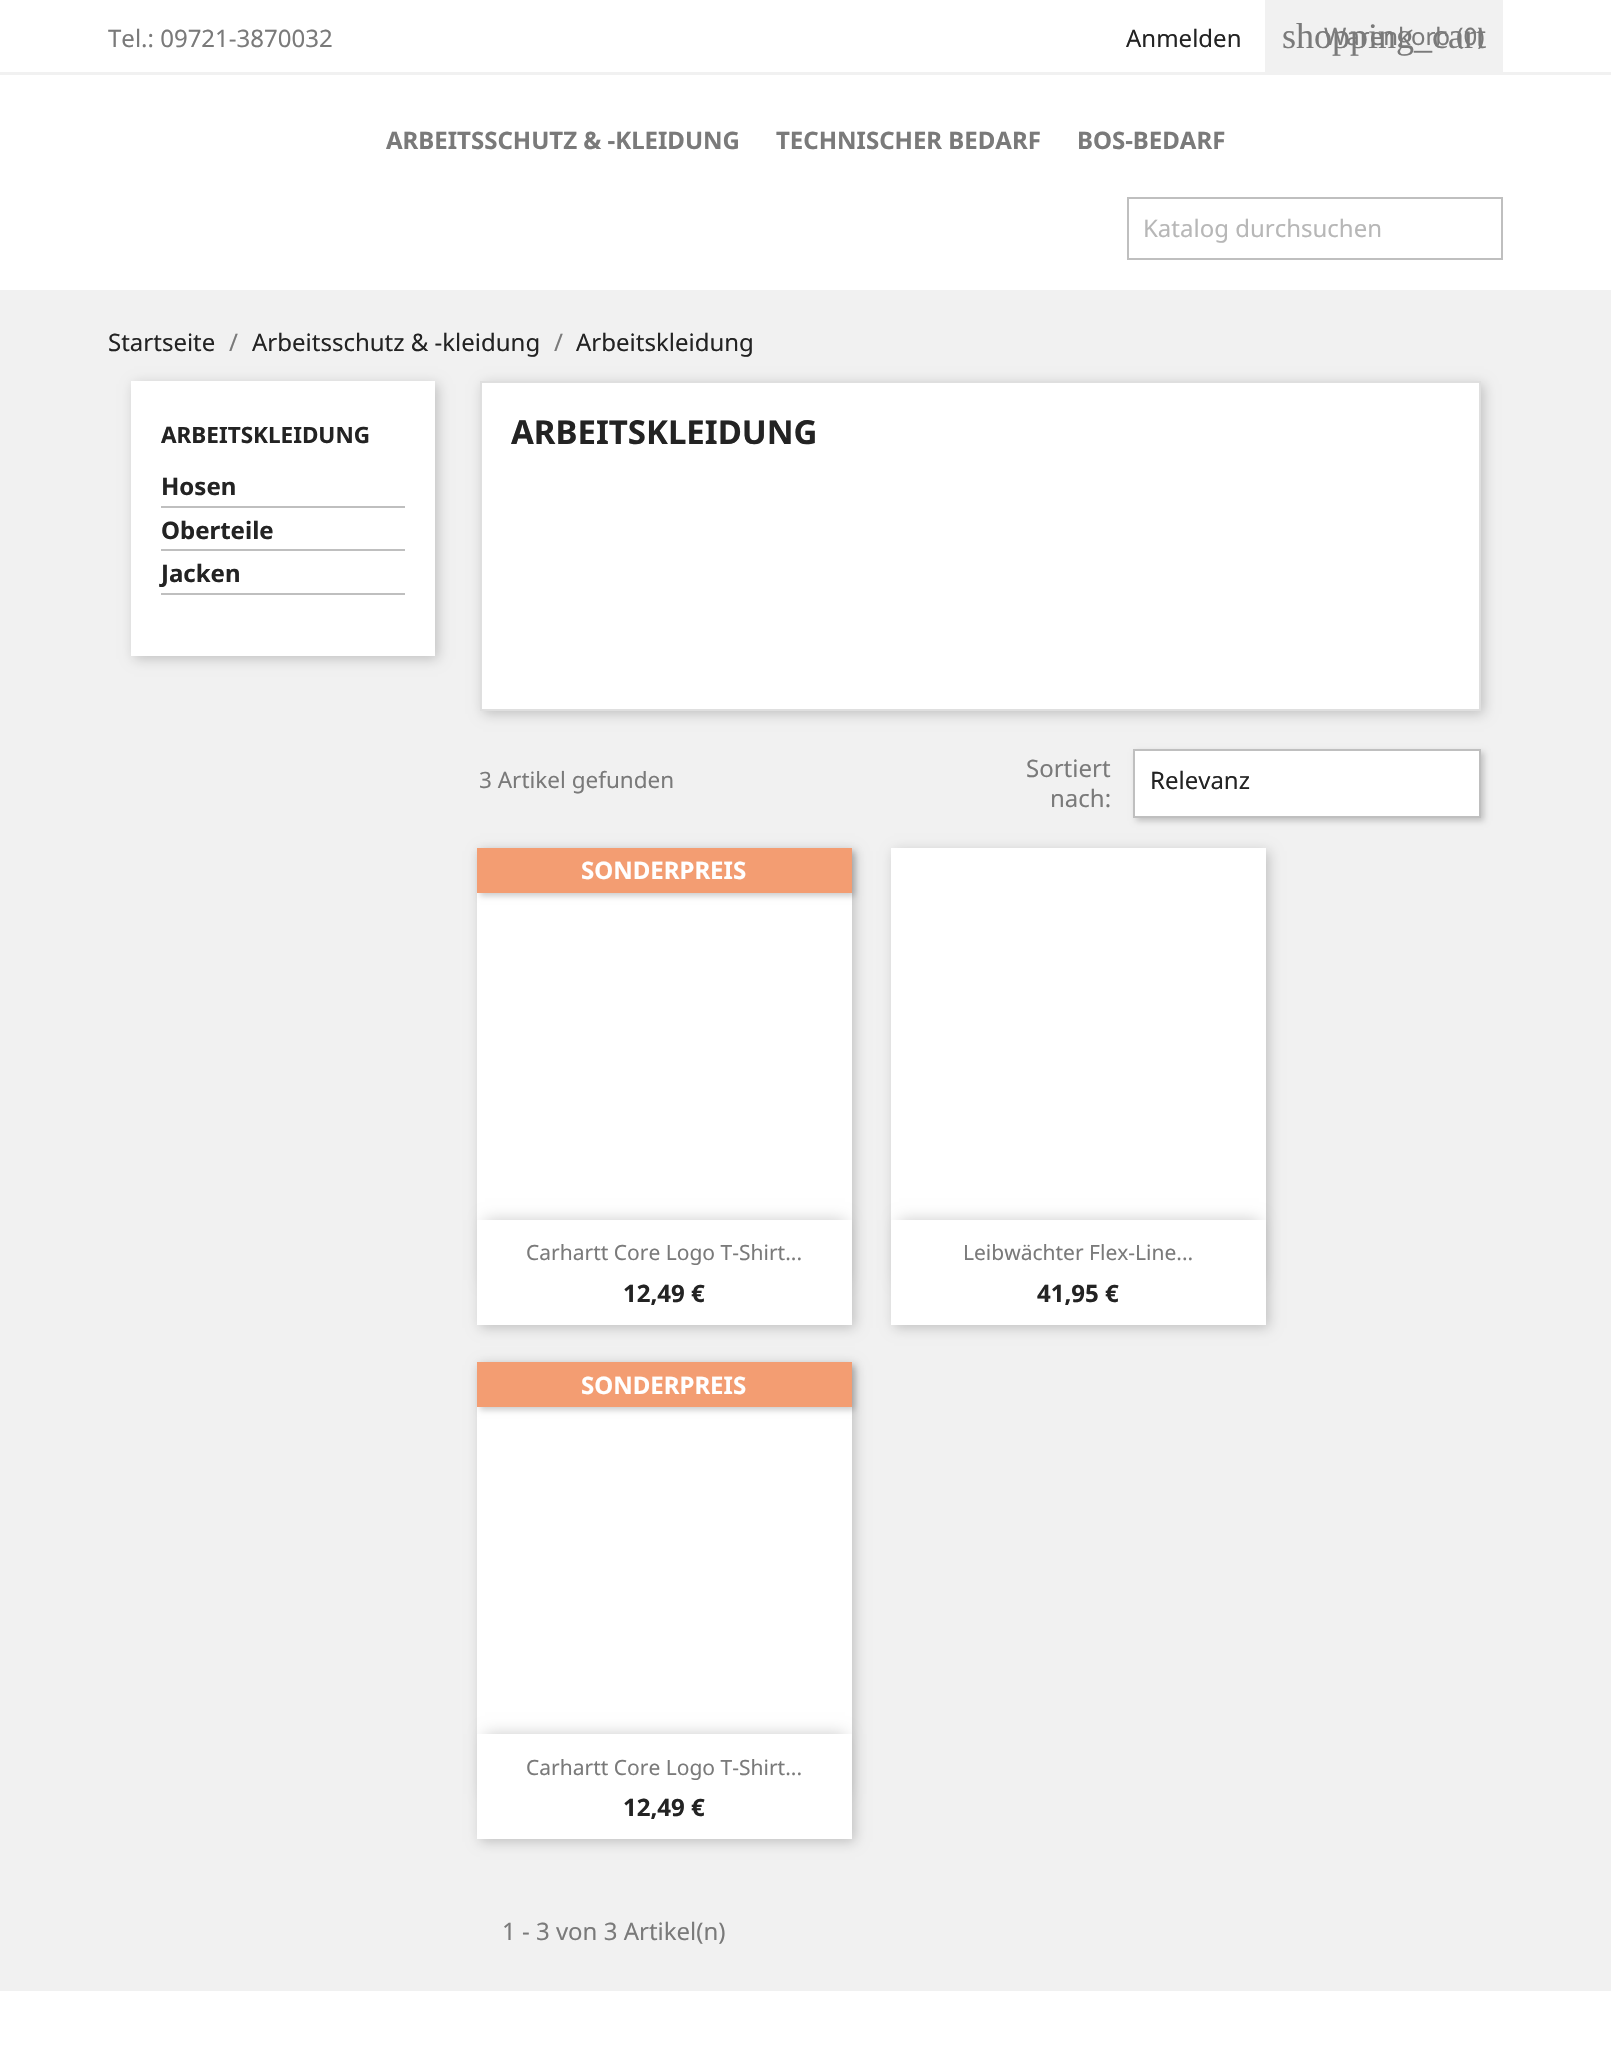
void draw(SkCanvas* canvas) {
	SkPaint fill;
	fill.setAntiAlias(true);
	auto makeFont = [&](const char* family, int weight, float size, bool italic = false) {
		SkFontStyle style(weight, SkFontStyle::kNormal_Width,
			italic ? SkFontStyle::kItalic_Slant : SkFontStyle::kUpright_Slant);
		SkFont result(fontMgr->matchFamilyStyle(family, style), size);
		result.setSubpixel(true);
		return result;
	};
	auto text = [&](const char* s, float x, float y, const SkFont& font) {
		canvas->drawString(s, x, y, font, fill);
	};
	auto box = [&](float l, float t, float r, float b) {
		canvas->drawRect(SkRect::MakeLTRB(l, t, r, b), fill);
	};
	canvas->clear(0xFFFFFFFF);
	fill.setColor(0xFFF1F1F1);
	box(0, 72, 1611, 75);
	box(1265, 0, 1503, 72);
	fill.setStyle(SkPaint::kStroke_Style);
	fill.setStrokeWidth(2);
	fill.setColor(0xFFBFBFBF);
	canvas->drawRect(SkRect::MakeLTRB(1128, 198, 1502, 259), fill);
	fill.setStyle(SkPaint::kFill_Style);
	fill.setColor(0xFFF1F1F1);
	box(0, 290, 1611, 1991);
	fill.setColor(0x33000000);
	fill.setMaskFilter(SkMaskFilter::MakeBlur(kNormal_SkBlurStyle, 6));
	canvas->drawRect(SkRect::MakeLTRB(134, 384, 438, 659), fill);
	fill.setMaskFilter(nullptr);
	fill.setColor(0xFFFFFFFF);
	box(131, 381, 435, 656);
	fill.setColor(0xFFBFBFBF);
	box(161, 506, 405, 508);
	box(161, 549, 405, 551);
	box(161, 593, 405, 595);
	fill.setColor(0x33000000);
	fill.setMaskFilter(SkMaskFilter::MakeBlur(kNormal_SkBlurStyle, 6));
	canvas->drawRect(SkRect::MakeLTRB(483, 384, 1484, 714), fill);
	fill.setMaskFilter(nullptr);
	fill.setColor(0xFFFFFFFF);
	canvas->drawRect(SkRect::MakeLTRB(481, 382, 1480, 710), fill);
	fill.setStyle(SkPaint::kStroke_Style);
	fill.setColor(0xFFDFDFDF);
	canvas->drawRect(SkRect::MakeLTRB(481, 382, 1480, 710), fill);
	fill.setStyle(SkPaint::kFill_Style);
	fill.setColor(0x33000000);
	fill.setMaskFilter(SkMaskFilter::MakeBlur(kNormal_SkBlurStyle, 3));
	canvas->drawRect(SkRect::MakeLTRB(1136, 752, 1484, 821), fill);
	fill.setMaskFilter(nullptr);
	fill.setColor(0xFFFFFFFF);
	canvas->drawRect(SkRect::MakeLTRB(1134, 750, 1480, 817), fill);
	fill.setStyle(SkPaint::kStroke_Style);
	fill.setColor(0xFFBFBFBF);
	canvas->drawRect(SkRect::MakeLTRB(1134, 750, 1480, 817), fill);
	fill.setStyle(SkPaint::kFill_Style);
	fill.setColor(0x33000000);
	fill.setMaskFilter(SkMaskFilter::MakeBlur(kNormal_SkBlurStyle, 6));
	canvas->drawRect(SkRect::MakeLTRB(480, 851, 855, 1328), fill);
	fill.setMaskFilter(nullptr);
	fill.setColor(0xFFFFFFFF);
	box(477, 893, 852, 1220);
	fill.setColor(0x33000000);
	fill.setMaskFilter(SkMaskFilter::MakeBlur(kNormal_SkBlurStyle, 3));
	canvas->drawRect(SkRect::MakeLTRB(480, 851, 855, 896), fill);
	fill.setMaskFilter(nullptr);
	fill.setColor(0xFFF39D72);
	box(477, 848, 852, 893);
	fill.setColor(0x33000000);
	fill.setMaskFilter(SkMaskFilter::MakeBlur(kNormal_SkBlurStyle, 7.5f));
	canvas->drawRect(SkRect::MakeLTRB(485, 1220, 845, 1280), fill);
	fill.setMaskFilter(nullptr);
	fill.setColor(0xFFFFFFFF);
	box(477, 1220, 852, 1325);
	fill.setColor(0x33000000);
	fill.setMaskFilter(SkMaskFilter::MakeBlur(kNormal_SkBlurStyle, 6));
	canvas->drawRect(SkRect::MakeLTRB(894, 851, 1269, 1328), fill);
	fill.setMaskFilter(nullptr);
	fill.setColor(0xFFFFFFFF);
	box(891, 848, 1266, 1220);
	fill.setColor(0x33000000);
	fill.setMaskFilter(SkMaskFilter::MakeBlur(kNormal_SkBlurStyle, 7.5f));
	canvas->drawRect(SkRect::MakeLTRB(899, 1220, 1259, 1280), fill);
	fill.setMaskFilter(nullptr);
	fill.setColor(0xFFFFFFFF);
	box(891, 1220, 1266, 1325);
	fill.setColor(0x33000000);
	fill.setMaskFilter(SkMaskFilter::MakeBlur(kNormal_SkBlurStyle, 6));
	canvas->drawRect(SkRect::MakeLTRB(480, 1365, 855, 1842), fill);
	fill.setMaskFilter(nullptr);
	fill.setColor(0xFFFFFFFF);
	box(477, 1407, 852, 1734);
	fill.setColor(0x33000000);
	fill.setMaskFilter(SkMaskFilter::MakeBlur(kNormal_SkBlurStyle, 3));
	canvas->drawRect(SkRect::MakeLTRB(480, 1365, 855, 1410), fill);
	fill.setMaskFilter(nullptr);
	fill.setColor(0xFFF39D72);
	box(477, 1362, 852, 1407);
	fill.setColor(0x33000000);
	fill.setMaskFilter(SkMaskFilter::MakeBlur(kNormal_SkBlurStyle, 7.5f));
	canvas->drawRect(SkRect::MakeLTRB(485, 1734, 845, 1794), fill);
	fill.setMaskFilter(nullptr);
	fill.setColor(0xFFFFFFFF);
	box(477, 1734, 852, 1839);
	auto font1 = makeFont("Noto Sans", 400, 24);
	fill.setColor(0xFF7A7A7A);
	text("Tel.: 09721-3870032", 108, 47, font1);
	fill.setColor(0xFF232323);
	text("Anmelden", 1126, 47, font1);
	auto font2 = makeFont("Liberation Serif", 400, 36);
	fill.setColor(0xFF7A7A7A);
	text("shopping_cart", 1282, 48, font2);
	text("Warenkorb (0)", 1324, 45, font1);
	auto font3 = makeFont("Noto Sans", 700, 24);
	text("ARBEITSSCHUTZ & -KLEIDUNG", 386, 149, font3);
	text("TECHNISCHER BEDARF", 776, 149, font3);
	text("BOS-BEDARF", 1077, 149, font3);
	fill.setColor(0xFFB7B7B7);
	text("Katalog durchsuchen", 1143, 237, font1);
	fill.setColor(0xFF232323);
	text("Startseite", 108, 351, font1);
	fill.setColor(0xFF7A7A7A);
	text("/", 229, 351, font1);
	fill.setColor(0xFF232323);
	text("Arbeitsschutz & -kleidung", 252, 351, font1);
	fill.setColor(0xFF7A7A7A);
	text("/", 554, 351, font1);
	fill.setColor(0xFF232323);
	text("Arbeitskleidung", 576, 351, font1);
	auto font4 = makeFont("Noto Sans", 700, 22.5f);
	text("ARBEITSKLEIDUNG", 161, 443, font4);
	text("Hosen", 161, 495, font3);
	text("Oberteile", 161, 539, font3);
	text("Jacken", 161, 582, font3);
	auto font5 = makeFont("Noto Sans", 700, 33);
	text("ARBEITSKLEIDUNG", 511, 444, font5);
	auto font6 = makeFont("Noto Sans", 400, 22.5f);
	fill.setColor(0xFF7A7A7A);
	text("3 Artikel gefunden", 479, 788, font6);
	text("Sortiert", 1026, 777, font1);
	text("nach:", 1050, 807, font1);
	fill.setColor(0xFF232323);
	text("Relevanz", 1150, 789, font1);
	fill.setColor(0xFFFFFFFF);
	text("SONDERPREIS", 581, 879, font3);
	auto font7 = makeFont("Noto Sans", 400, 21);
	fill.setColor(0xFF7A7A7A);
	text("Carhartt Core Logo T-Shirt...", 526, 1260, font7);
	fill.setColor(0xFF232323);
	text("12,49 €", 623, 1302, font3);
	fill.setColor(0xFF7A7A7A);
	text("Leibwächter Flex-Line...", 963, 1260, font7);
	fill.setColor(0xFF232323);
	text("41,95 €", 1037, 1302, font3);
	fill.setColor(0xFFFFFFFF);
	text("SONDERPREIS", 581, 1394, font3);
	fill.setColor(0xFF7A7A7A);
	text("Carhartt Core Logo T-Shirt...", 526, 1775, font7);
	fill.setColor(0xFF232323);
	text("12,49 €", 623, 1816, font3);
	fill.setColor(0xFF7A7A7A);
	text("1 - 3 von 3 Artikel(n)", 502, 1940, font1);
}
